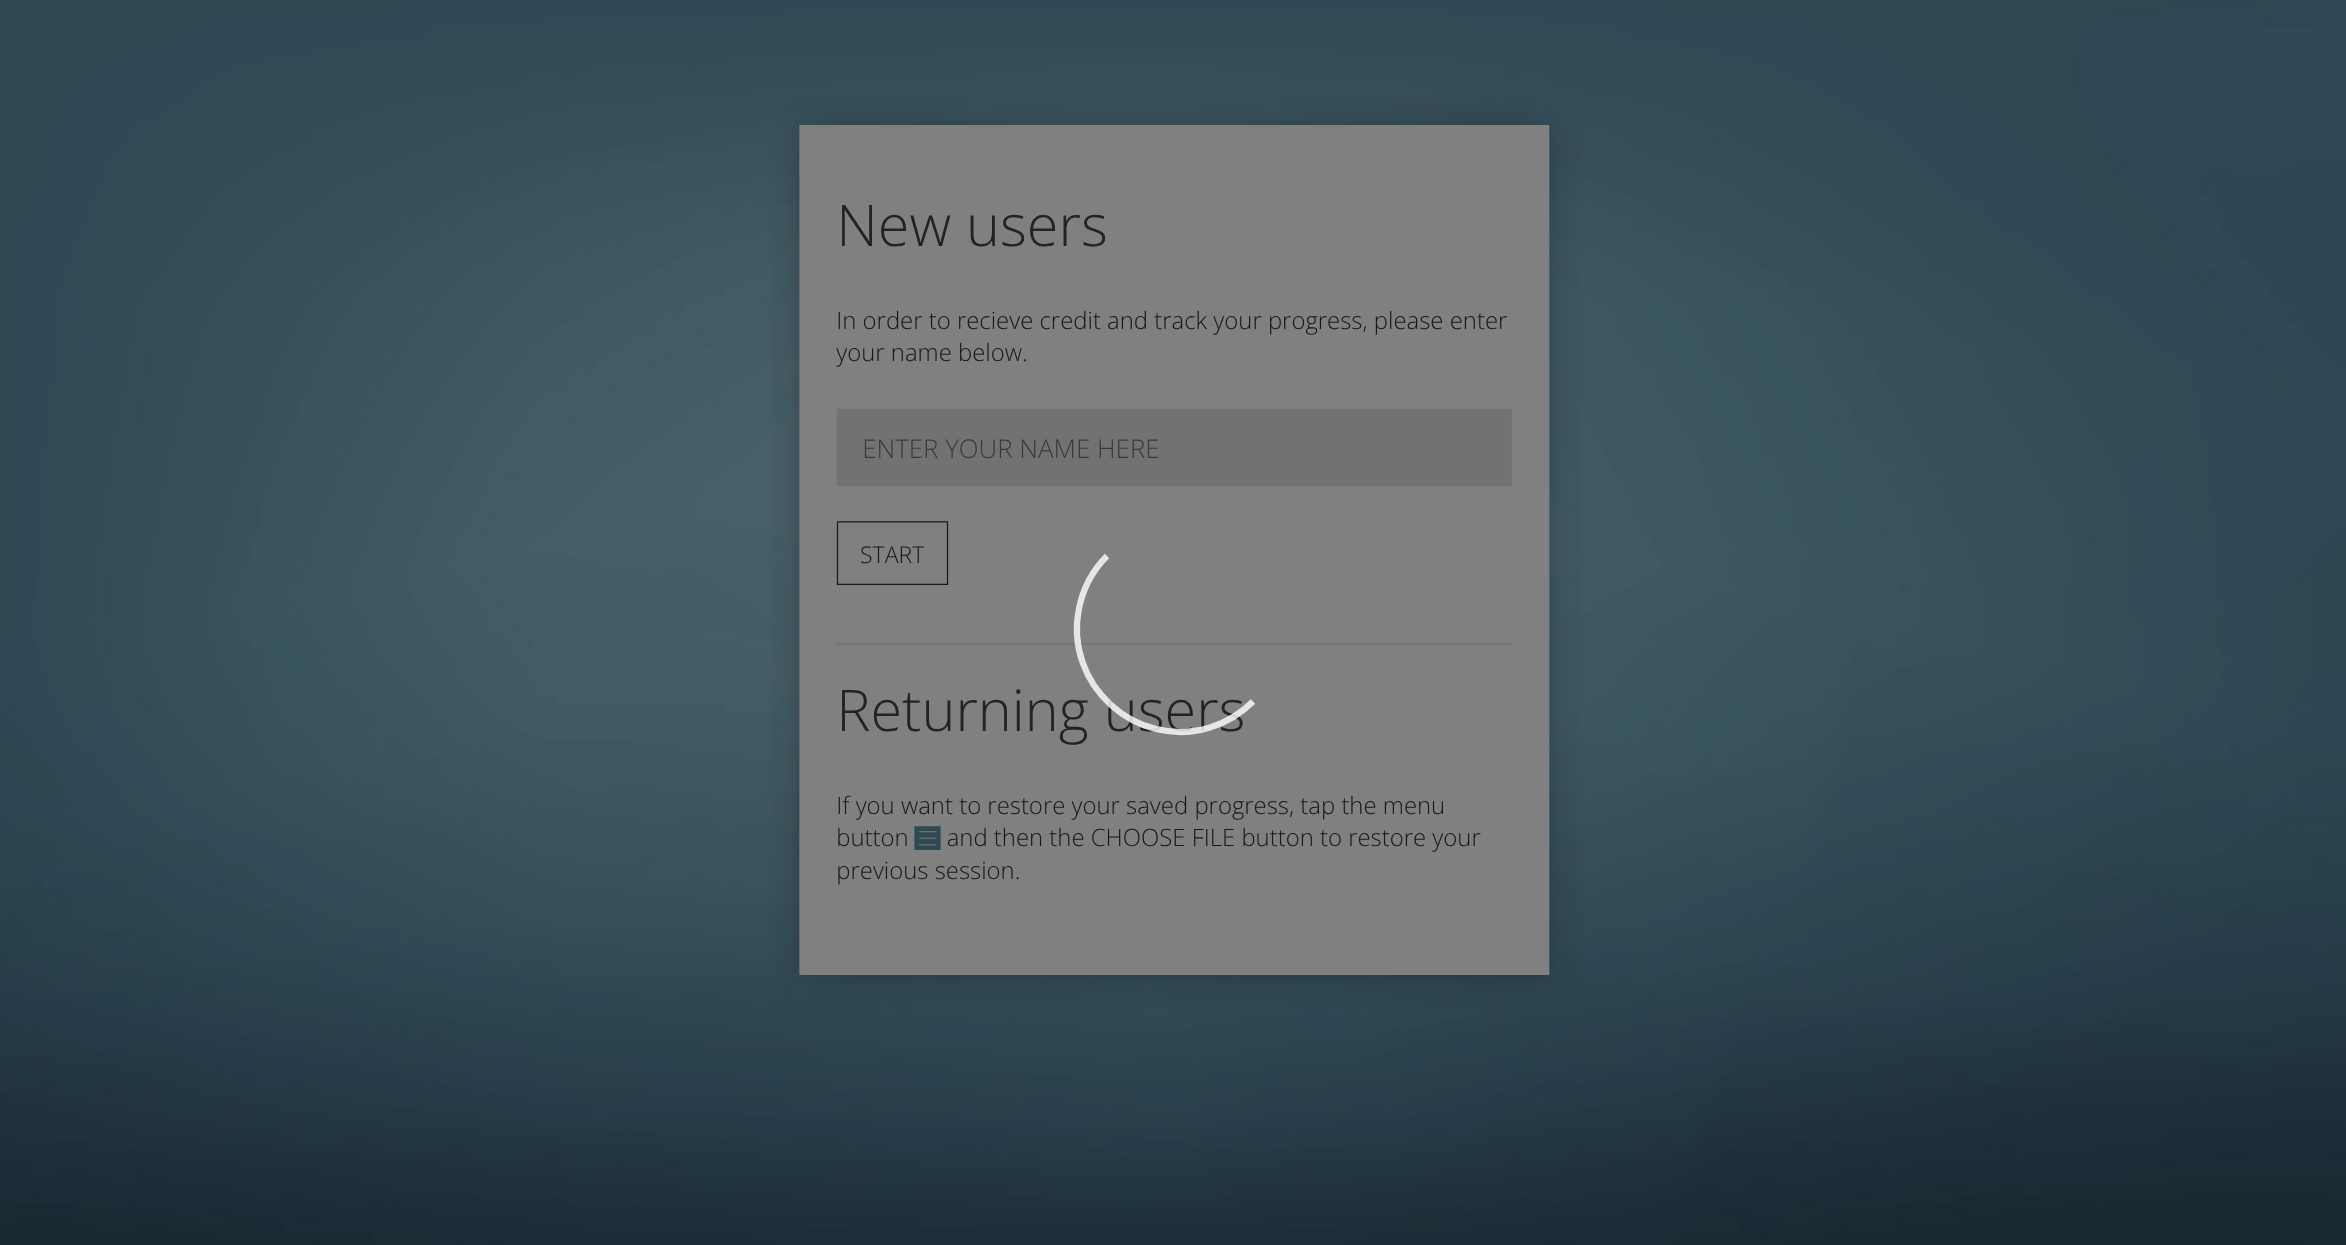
void draw(SkCanvas* canvas) {
	SkPaint fill;
	fill.setAntiAlias(true);
	auto picture = [&](const char* path, float l, float t, float r, float b) {
		auto image = SkImages::DeferredFromEncodedData(SkData::MakeFromFileName(path));
		canvas->drawImageRect(image, SkRect::MakeLTRB(l, t, r, b), SkSamplingOptions());
	};
	canvas->clear(0xFFFFFFFF);
	picture("image0.png", 0, 0, 2346, 1245);
	picture("image1.png", 770, 95, 1582, 1007);
	fill.setStyle(SkPaint::kStroke_Style);
	fill.setStrokeWidth(6.2f);
	fill.setColor(0xCCFFFFFF);
	canvas->drawPath(SkPathBuilder().moveTo(1253, 701.5f).cubicTo(1241, 713.5f, 1226, 722.5f, 1210, 727.5f).cubicTo(1136, 750, 1063.5f, 684.5f, 1079, 608.5f).cubicTo(1083, 588.5f, 1093, 570, 1107, 556).detach(), fill);
}
